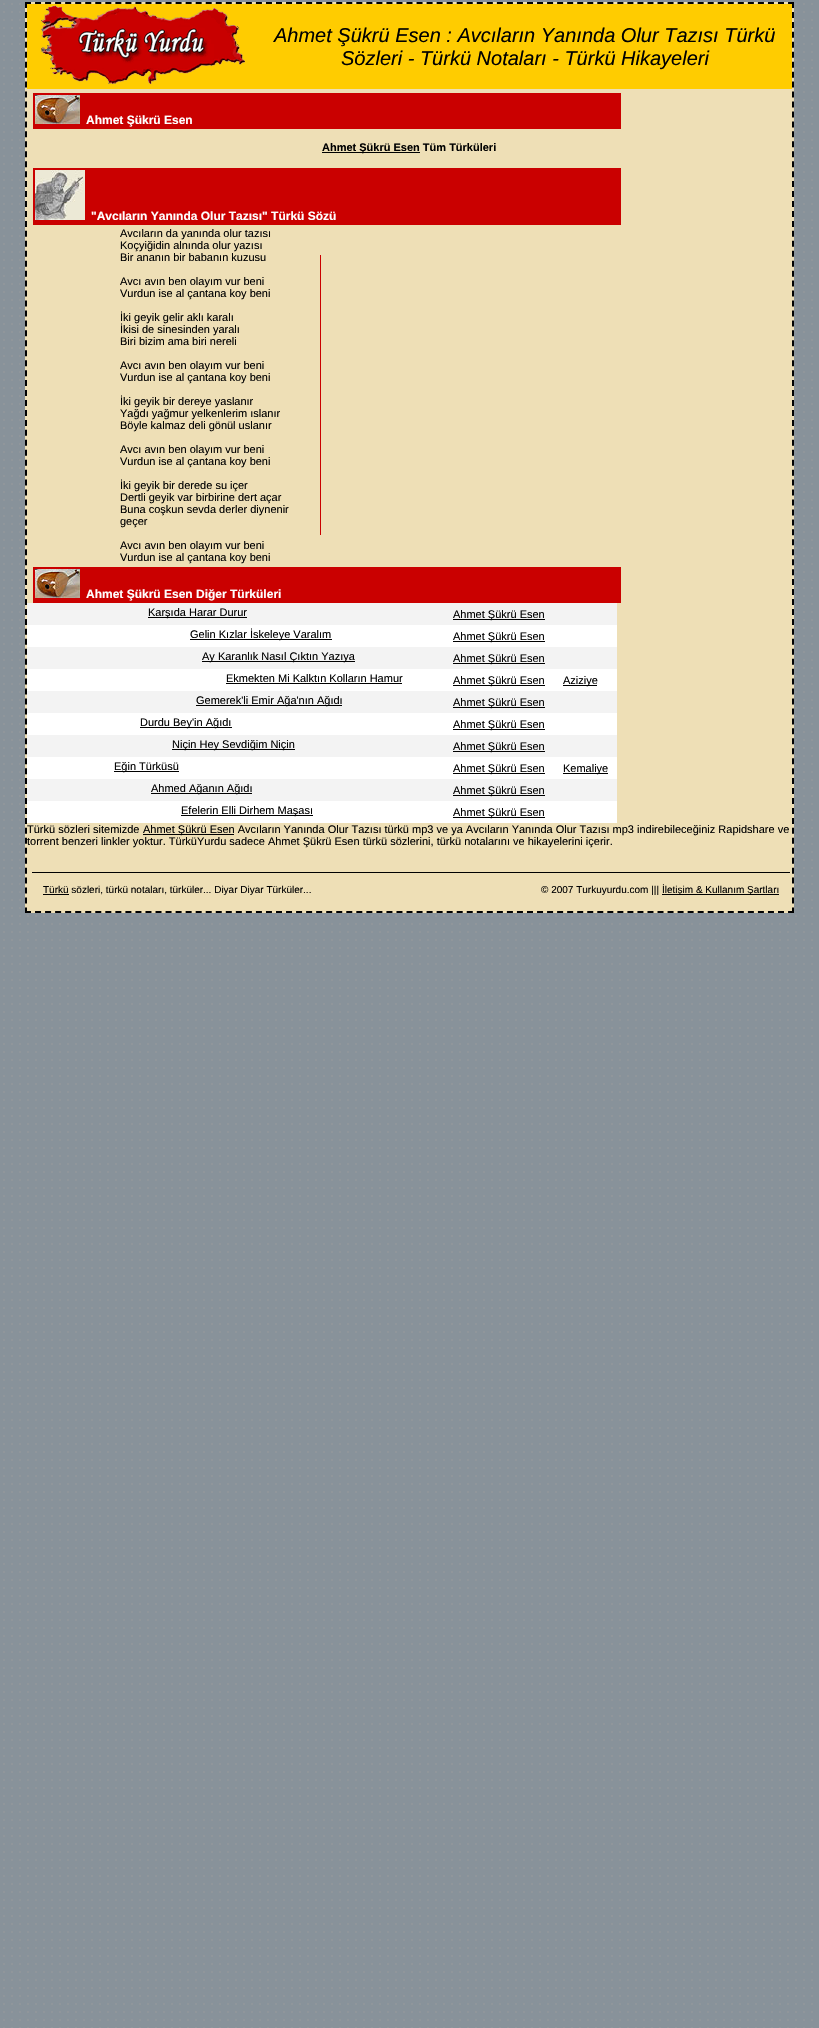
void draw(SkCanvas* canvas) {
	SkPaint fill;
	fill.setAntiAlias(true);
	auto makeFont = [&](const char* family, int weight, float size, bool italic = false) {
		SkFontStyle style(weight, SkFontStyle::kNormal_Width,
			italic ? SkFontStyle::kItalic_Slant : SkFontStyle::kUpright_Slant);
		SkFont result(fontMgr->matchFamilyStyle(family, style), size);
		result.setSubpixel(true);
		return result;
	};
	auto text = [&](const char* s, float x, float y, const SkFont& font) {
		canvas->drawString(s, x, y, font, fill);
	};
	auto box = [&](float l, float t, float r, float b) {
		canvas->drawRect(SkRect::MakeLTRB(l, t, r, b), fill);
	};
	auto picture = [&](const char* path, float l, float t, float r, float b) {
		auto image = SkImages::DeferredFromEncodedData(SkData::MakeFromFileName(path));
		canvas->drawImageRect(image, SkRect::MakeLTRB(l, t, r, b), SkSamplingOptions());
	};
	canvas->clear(0xFF88929A);
	picture("image0.png", 3, 3, 813, 2028);
	fill.setColor(0xFFEEDFB6);
	box(25, 2, 794, 913);
	fill.setStyle(SkPaint::kStroke_Style);
	fill.setStrokeWidth(2);
	fill.setColor(0xFF000000);
	fill.setPathEffect(SkDashPathEffect::Make({{6, 4.04f}}, 0));
	canvas->drawPath(SkPathBuilder().moveTo(25, 3).lineTo(794, 3).detach(), fill);
	fill.setPathEffect(nullptr);
	fill.setPathEffect(SkDashPathEffect::Make({{6, 3.95f}}, 0));
	canvas->drawPath(SkPathBuilder().moveTo(793, 2).lineTo(793, 913).detach(), fill);
	fill.setPathEffect(nullptr);
	fill.setPathEffect(SkDashPathEffect::Make({{6, 4.04f}}, 0));
	canvas->drawPath(SkPathBuilder().moveTo(25, 912).lineTo(794, 912).detach(), fill);
	fill.setPathEffect(nullptr);
	fill.setPathEffect(SkDashPathEffect::Make({{6, 3.95f}}, 0));
	canvas->drawPath(SkPathBuilder().moveTo(26, 2).lineTo(26, 913).detach(), fill);
	fill.setPathEffect(nullptr);
	fill.setStyle(SkPaint::kFill_Style);
	fill.setColor(0xFFFFCC00);
	box(27, 4, 792, 89);
	picture("image1.png", 40, 5, 245, 84);
	fill.setColor(0xFFCA0000);
	box(33, 93, 621, 129);
	picture("image2.png", 35, 95, 80, 124);
	fill.setColor(0xFF000000);
	box(322, 152, 420, 153);
	fill.setColor(0xFFCA0000);
	box(33, 168, 621, 225);
	picture("image3.png", 35, 170, 85, 220);
	box(320, 255, 321, 535);
	box(33, 567, 621, 603);
	picture("image2.png", 35, 569, 80, 598);
	fill.setColor(0xFFF3F3F3);
	box(27, 603, 617, 625);
	fill.setColor(0xFF000000);
	box(148, 617, 247, 618);
	box(453, 619, 545, 620);
	fill.setColor(0xFFFFFFFF);
	box(27, 625, 617, 647);
	fill.setColor(0xFF000000);
	box(190, 639, 332, 640);
	box(453, 641, 545, 642);
	fill.setColor(0xFFF3F3F3);
	box(27, 647, 617, 669);
	fill.setColor(0xFF000000);
	box(202, 661, 355, 662);
	box(453, 663, 545, 664);
	fill.setColor(0xFFFFFFFF);
	box(27, 669, 617, 691);
	fill.setColor(0xFF000000);
	box(226, 683, 402, 684);
	box(453, 685, 545, 686);
	box(563, 685, 597, 686);
	fill.setColor(0xFFF3F3F3);
	box(27, 691, 617, 713);
	fill.setColor(0xFF000000);
	box(196, 705, 342, 706);
	box(453, 707, 545, 708);
	fill.setColor(0xFFFFFFFF);
	box(27, 713, 617, 735);
	fill.setColor(0xFF000000);
	box(140, 727, 232, 728);
	box(453, 729, 545, 730);
	fill.setColor(0xFFF3F3F3);
	box(27, 735, 617, 757);
	fill.setColor(0xFF000000);
	box(172, 749, 295, 750);
	box(453, 751, 545, 752);
	fill.setColor(0xFFFFFFFF);
	box(27, 757, 617, 779);
	fill.setColor(0xFF000000);
	box(114, 771, 179, 772);
	box(453, 773, 545, 774);
	box(563, 773, 608, 774);
	fill.setColor(0xFFF3F3F3);
	box(27, 779, 617, 801);
	fill.setColor(0xFF000000);
	box(151, 793, 252, 794);
	box(453, 795, 545, 796);
	fill.setColor(0xFFFFFFFF);
	box(27, 801, 617, 823);
	fill.setColor(0xFF000000);
	box(181, 815, 313, 816);
	box(453, 817, 545, 818);
	box(143, 834, 234, 835);
	box(32, 872, 790, 873);
	box(43, 894, 69, 895);
	box(662, 894, 779, 895);
	auto font1 = makeFont("Liberation Sans", 400, 20, true);
	text("Ahmet Şükrü Esen : Avcıların Yanında Olur Tazısı Türkü", 274, 42, font1);
	text("Sözleri - Türkü Notaları - Türkü Hikayeleri", 341, 65, font1);
	auto font2 = makeFont("Liberation Sans", 700, 12);
	fill.setColor(0xFFFFFFFF);
	text("Ahmet Şükrü Esen", 86, 124, font2);
	auto font3 = makeFont("Liberation Sans", 700, 11);
	fill.setColor(0xFF000000);
	text("Ahmet Şükrü Esen Tüm Türküleri", 322, 151, font3);
	fill.setColor(0xFFFFFFFF);
	text("\"Avcıların Yanında Olur Tazısı\" Türkü Sözü", 91, 220, font2);
	auto font4 = makeFont("Liberation Sans", 400, 11);
	fill.setColor(0xFF000000);
	text("Avcıların da yanında olur tazısı", 120, 237, font4);
	text("Koçyiğidin alnında olur yazısı", 120, 249, font4);
	text("Bir ananın bir babanın kuzusu", 120, 261, font4);
	text("Avcı avın ben olayım vur beni", 120, 285, font4);
	text("Vurdun ise al çantana koy beni", 120, 297, font4);
	text("İki geyik gelir aklı karalı", 120, 321, font4);
	text("İkisi de sinesinden yaralı", 120, 333, font4);
	text("Biri bizim ama biri nereli", 120, 345, font4);
	text("Avcı avın ben olayım vur beni", 120, 369, font4);
	text("Vurdun ise al çantana koy beni", 120, 381, font4);
	text("İki geyik bir dereye yaslanır", 120, 405, font4);
	text("Yağdı yağmur yelkenlerim ıslanır", 120, 417, font4);
	text("Böyle kalmaz deli gönül uslanır", 120, 429, font4);
	text("Avcı avın ben olayım vur beni", 120, 453, font4);
	text("Vurdun ise al çantana koy beni", 120, 465, font4);
	text("İki geyik bir derede su içer", 120, 489, font4);
	text("Dertli geyik var birbirine dert açar", 120, 501, font4);
	text("Buna coşkun sevda derler diynenir", 120, 513, font4);
	text("geçer", 120, 525, font4);
	text("Avcı avın ben olayım vur beni", 120, 549, font4);
	text("Vurdun ise al çantana koy beni", 120, 561, font4);
	fill.setColor(0xFFFFFFFF);
	text("Ahmet Şükrü Esen Diğer Türküleri", 86, 598, font2);
	fill.setColor(0xFF000000);
	text("Karşıda Harar Durur", 148, 616, font4);
	text("Ahmet Şükrü Esen", 453, 618, font4);
	text("Gelin Kızlar İskeleye Varalım", 190, 638, font4);
	text("Ahmet Şükrü Esen", 453, 640, font4);
	text("Ay Karanlık Nasıl Çıktın Yazıya", 202, 660, font4);
	text("Ahmet Şükrü Esen", 453, 662, font4);
	text("Ekmekten Mi Kalktın Kolların Hamur", 226, 682, font4);
	text("Ahmet Şükrü Esen", 453, 684, font4);
	text("Aziziye", 563, 684, font4);
	text("Gemerek'li Emir Ağa'nın Ağıdı", 196, 704, font4);
	text("Ahmet Şükrü Esen", 453, 706, font4);
	text("Durdu Bey'in Ağıdı", 140, 726, font4);
	text("Ahmet Şükrü Esen", 453, 728, font4);
	text("Niçin Hey Sevdiğim Niçin", 172, 748, font4);
	text("Ahmet Şükrü Esen", 453, 750, font4);
	text("Eğin Türküsü", 114, 770, font4);
	text("Ahmet Şükrü Esen", 453, 772, font4);
	text("Kemaliye", 563, 772, font4);
	text("Ahmed Ağanın Ağıdı", 151, 792, font4);
	text("Ahmet Şükrü Esen", 453, 794, font4);
	text("Efelerin Elli Dirhem Maşası", 181, 814, font4);
	text("Ahmet Şükrü Esen", 453, 816, font4);
	text("Türkü sözleri sitemizde", 27, 833, font4);
	text("Ahmet Şükrü Esen Avcıların Yanında Olur Tazısı türkü mp3 ve ya Avcıların Yanında Olur Tazısı mp3 indirebileceğiniz Rapidshare ve", 143, 833, font4);
	text("torrent benzeri linkler yoktur. TürküYurdu sadece Ahmet Şükrü Esen türkü sözlerini, türkü notalarını ve hikayelerini içerir.", 27, 845, font4);
	auto font5 = makeFont("Liberation Sans", 400, 10);
	text("Türkü sözleri, türkü notaları, türküler... Diyar Diyar Türküler...", 43, 893, font5);
	text("© 2007 Turkuyurdu.com |||", 541, 893, font5);
	text("İletişim & Kullanım Şartları", 662, 893, font5);
}
